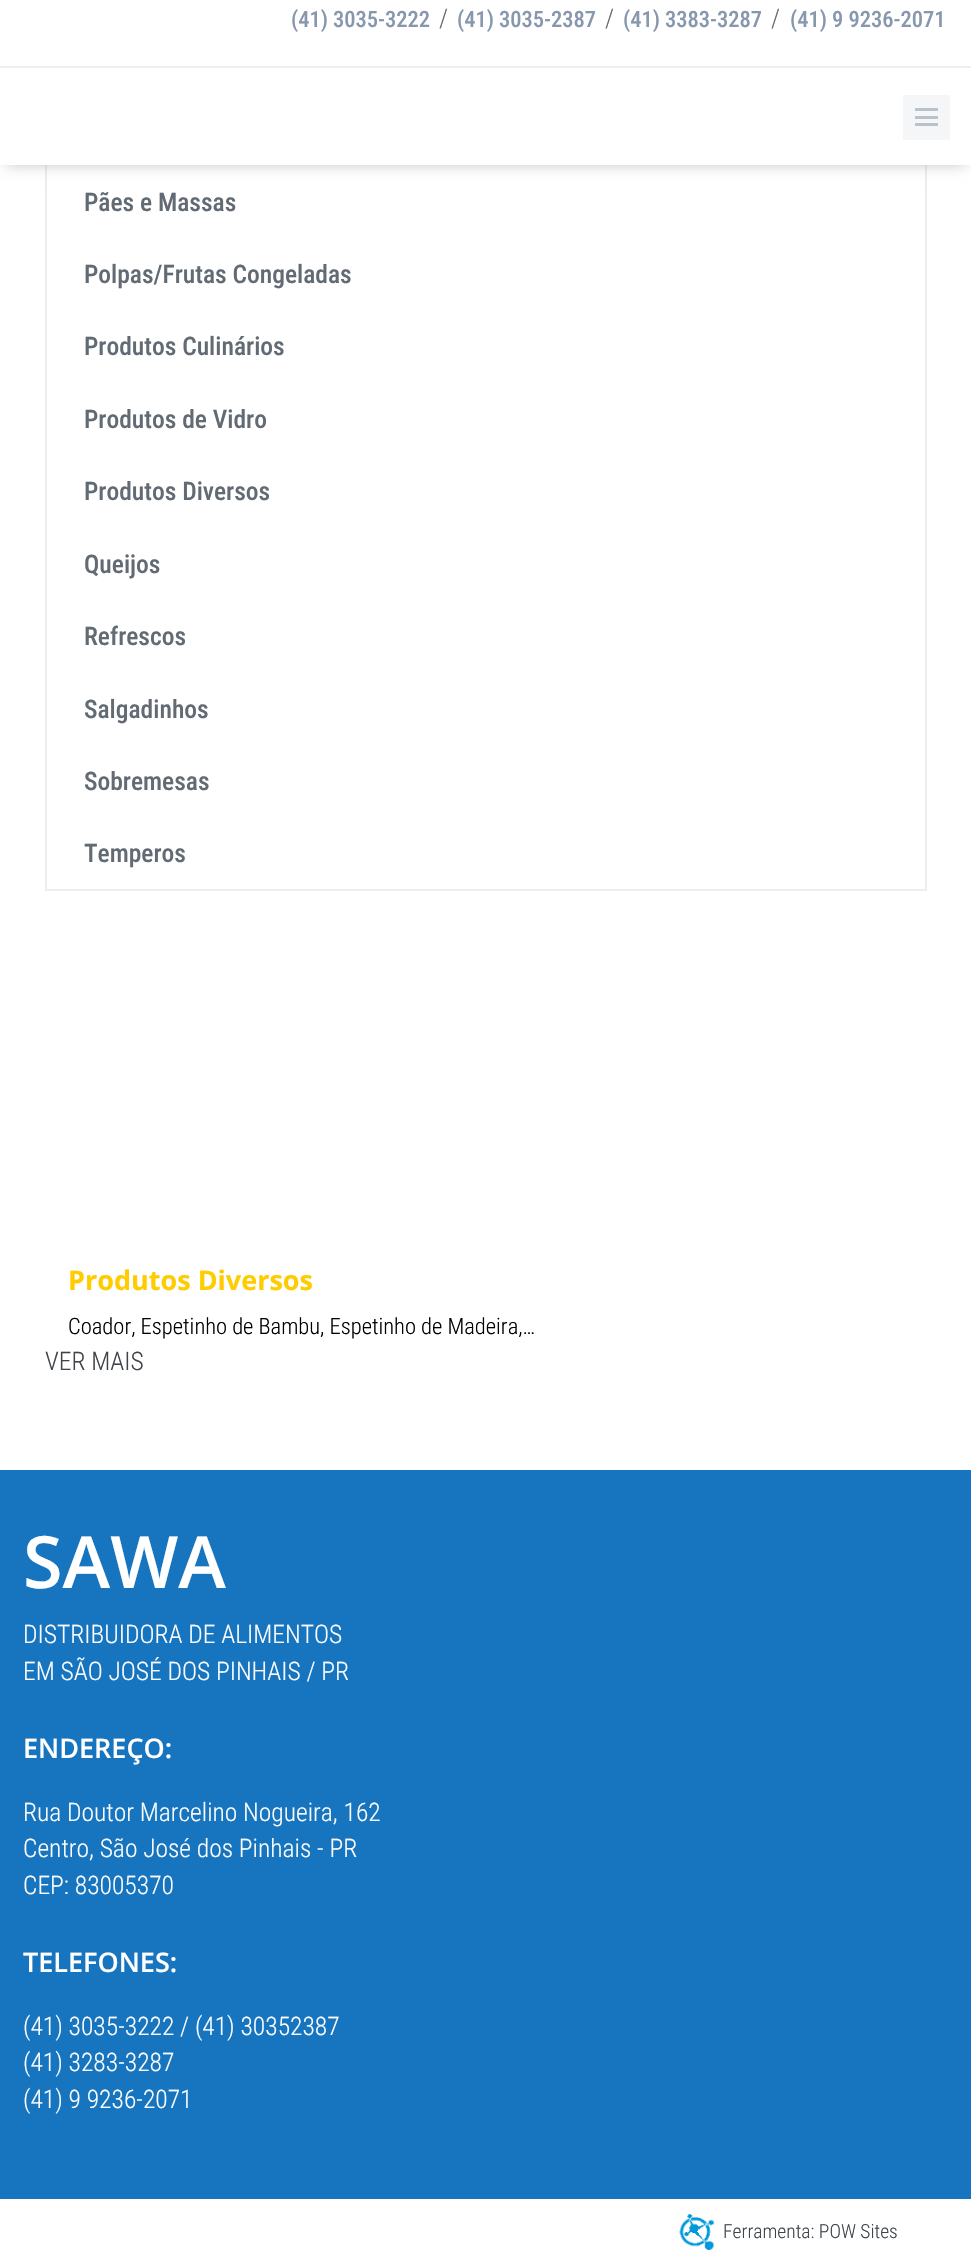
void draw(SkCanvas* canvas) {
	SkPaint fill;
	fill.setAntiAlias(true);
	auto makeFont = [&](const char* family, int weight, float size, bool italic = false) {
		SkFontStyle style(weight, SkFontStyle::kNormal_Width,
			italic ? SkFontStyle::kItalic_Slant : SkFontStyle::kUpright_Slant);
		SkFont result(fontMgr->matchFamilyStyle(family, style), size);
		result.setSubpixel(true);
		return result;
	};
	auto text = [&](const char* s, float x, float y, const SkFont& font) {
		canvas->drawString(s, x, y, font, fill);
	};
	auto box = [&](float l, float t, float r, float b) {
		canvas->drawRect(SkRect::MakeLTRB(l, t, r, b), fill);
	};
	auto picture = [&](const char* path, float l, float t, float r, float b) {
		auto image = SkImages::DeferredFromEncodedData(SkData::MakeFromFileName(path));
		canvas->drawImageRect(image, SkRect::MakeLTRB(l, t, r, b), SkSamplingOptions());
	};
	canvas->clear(0xFFFFFFFF);
	fill.setStyle(SkPaint::kStroke_Style);
	fill.setStrokeWidth(2);
	fill.setColor(0xFFEAEEF1);
	canvas->drawRect(SkRect::MakeLTRB(46, -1, 926, 890), fill);
	fill.setStyle(SkPaint::kFill_Style);
	fill.setColor(0x40000000);
	fill.setMaskFilter(SkMaskFilter::MakeBlur(kNormal_SkBlurStyle, 7));
	canvas->drawRect(SkRect::MakeLTRB(6, 11, 966, 164), fill);
	fill.setMaskFilter(nullptr);
	fill.setColor(0xFFFFFFFF);
	box(0, 0, 971, 165);
	fill.setColor(0xFFEDEFF3);
	box(0, 66, 971, 68);
	fill.setColor(0xFFF5F6F8);
	box(903, 95, 950, 140);
	fill.setColor(0xFFBAC3CD);
	box(915, 108, 938, 111);
	box(915, 116, 938, 119);
	box(915, 123, 938, 126);
	fill.setColor(0xFF1775BF);
	box(0, 1470, 971, 2199);
	picture("image0.png", 679, 2214, 715, 2250);
	auto font1 = makeFont("Roboto Condensed", 500, 22.5f);
	fill.setColor(0xFF8797AE);
	text("(41) 3035-3222", 291, 27, font1);
	auto font2 = makeFont("Roboto Condensed", 300, 25.5f);
	fill.setColor(0xFF5C6873);
	text("/", 439, 27, font2);
	fill.setColor(0xFF8797AE);
	text("(41) 3035-2387", 457, 27, font1);
	fill.setColor(0xFF5C6873);
	text("/", 605, 27, font2);
	fill.setColor(0xFF8797AE);
	text("(41) 3383-3287", 623, 27, font1);
	fill.setColor(0xFF5C6873);
	text("/", 771, 27, font2);
	fill.setColor(0xFF8797AE);
	text("(41) 9 9236-2071", 790, 27, font1);
	auto font3 = makeFont("Roboto Condensed", 500, 25.5f);
	fill.setColor(0xFF626A73);
	text("Pães e Massas", 84, 211, font3);
	text("Polpas/Frutas Congeladas", 84, 283, font3);
	text("Produtos Culinários", 84, 355, font3);
	text("Produtos de Vidro", 84, 428, font3);
	text("Produtos Diversos", 84, 500, font3);
	text("Queijos", 84, 573, font3);
	text("Refrescos", 84, 645, font3);
	text("Salgadinhos", 84, 718, font3);
	text("Sobremesas", 84, 790, font3);
	text("Temperos", 84, 862, font3);
	auto font4 = makeFont("Open Sans", 700, 27);
	fill.setColor(0xFFFFCC00);
	text("Produtos Diversos", 68, 1290, font4);
	auto font5 = makeFont("Roboto Condensed", 300, 22.5f);
	fill.setColor(0xFF000000);
	text("Coador, Espetinho de Bambu, Espetinho de Madeira,…", 68, 1334, font5);
	fill.setColor(0xFF3F444A);
	text("VER MAIS", 45, 1370, font2);
	auto font6 = makeFont("Open Sans", 600, 72);
	fill.setColor(0xFFFFFFFF);
	text("SAWA", 23, 1588, font6);
	text("DISTRIBUIDORA DE ALIMENTOS", 23, 1643, font2);
	text("EM SÃO JOSÉ DOS PINHAIS / PR", 23, 1680, font2);
	auto font7 = makeFont("Open Sans", 600, 27);
	text("ENDEREÇO:", 23, 1758, font7);
	text("Rua Doutor Marcelino Nogueira, 162", 23, 1821, font2);
	text("Centro, São José dos Pinhais - PR", 23, 1857, font2);
	text("CEP: 83005370", 23, 1894, font2);
	text("TELEFONES:", 23, 1972, font7);
	text("(41) 3035-3222 / (41) 30352387", 23, 2035, font2);
	text("(41) 3283-3287", 23, 2071, font2);
	text("(41) 9 9236-2071", 23, 2108, font2);
	auto font8 = makeFont("Roboto Condensed", 300, 19.5f);
	fill.setColor(0xFF3F444A);
	text("Ferramenta: POW Sites", 723, 2238, font8);
}
